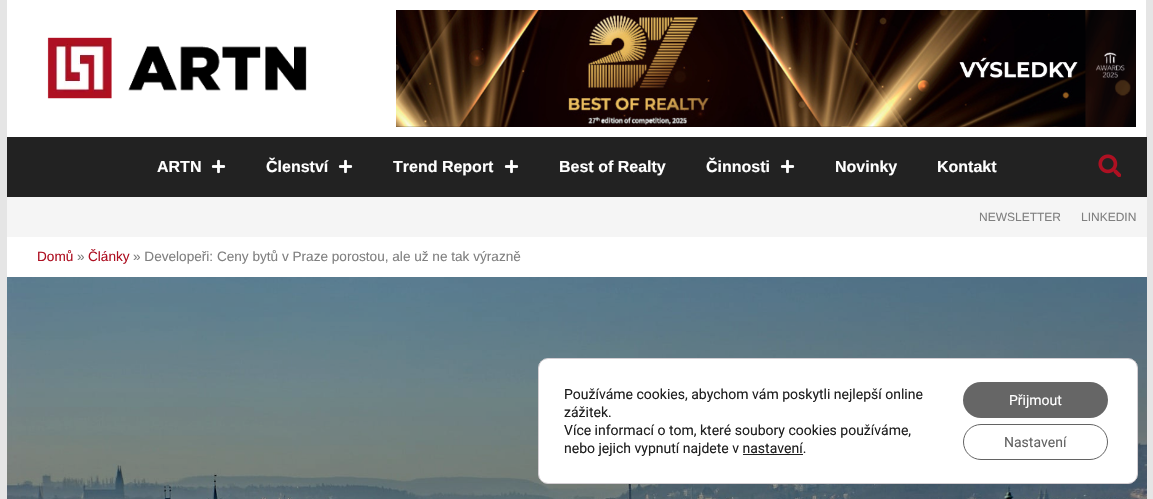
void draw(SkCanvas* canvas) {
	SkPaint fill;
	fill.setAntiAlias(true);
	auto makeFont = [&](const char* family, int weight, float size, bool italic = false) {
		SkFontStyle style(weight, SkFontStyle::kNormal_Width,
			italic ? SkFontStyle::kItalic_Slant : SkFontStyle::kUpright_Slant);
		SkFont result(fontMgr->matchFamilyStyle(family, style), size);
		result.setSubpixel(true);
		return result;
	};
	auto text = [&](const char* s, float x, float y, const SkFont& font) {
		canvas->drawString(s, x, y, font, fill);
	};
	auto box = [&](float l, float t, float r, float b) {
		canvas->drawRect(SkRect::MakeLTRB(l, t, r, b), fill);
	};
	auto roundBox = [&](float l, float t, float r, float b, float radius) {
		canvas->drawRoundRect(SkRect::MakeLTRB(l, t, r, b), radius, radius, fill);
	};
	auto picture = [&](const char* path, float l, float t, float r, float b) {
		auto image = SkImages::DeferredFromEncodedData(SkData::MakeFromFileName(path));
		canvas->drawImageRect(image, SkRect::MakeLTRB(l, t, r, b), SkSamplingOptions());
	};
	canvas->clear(0xFFE5E5E5);
	fill.setColor(0xFFFFFFFF);
	box(7, 0, 1146, 137);
	picture("image0.png", 47, 37, 307, 99);
	picture("image1.png", 396, 10, 1136, 127);
	fill.setColor(0xFF222222);
	box(7, 137, 1147, 197);
	picture("image2.png", 211, 159, 226, 174);
	picture("image2.png", 338, 159, 353, 174);
	picture("image2.png", 504, 159, 519, 174);
	picture("image2.png", 780, 159, 795, 174);
	picture("image3.png", 1098, 154, 1121, 177);
	fill.setColor(0xFFF5F5F5);
	box(7, 197, 1147, 237);
	fill.setColor(0xFFFFFFFF);
	box(7, 237, 1147, 277);
	picture("image4.png", 7, 277, 1147, 499);
	canvas->drawRoundRect(SkRect::MakeLTRB(538.5f, 358.5f, 1137.5f, 483.5f), 9.5f, 9.5f, fill);
	fill.setStyle(SkPaint::kStroke_Style);
	fill.setStrokeWidth(1);
	fill.setColor(0xFFD3CED2);
	canvas->drawRoundRect(SkRect::MakeLTRB(538.5f, 358.5f, 1137.5f, 483.5f), 9.5f, 9.5f, fill);
	fill.setStyle(SkPaint::kFill_Style);
	fill.setColor(0xFF202020);
	box(743, 454, 803, 455);
	fill.setColor(0xFF666666);
	roundBox(963, 382, 1108, 418, 18);
	fill.setStyle(SkPaint::kStroke_Style);
	fill.setColor(0xFF636363);
	canvas->drawRoundRect(SkRect::MakeLTRB(963.5f, 424.5f, 1107.5f, 459.5f), 17.5f, 17.5f, fill);
	auto font1 = makeFont("Liberation Sans", 700, 16);
	fill.setStyle(SkPaint::kFill_Style);
	fill.setColor(0xFFFFFFFF);
	text("ARTN", 157, 172, font1);
	text("Členství", 266, 172, font1);
	text("Trend Report", 393, 172, font1);
	text("Best of Realty", 559, 172, font1);
	text("Činnosti", 706, 172, font1);
	text("Novinky", 835, 172, font1);
	text("Kontakt", 937, 172, font1);
	auto font2 = makeFont("Liberation Sans", 400, 12);
	fill.setColor(0xFF808080);
	text("NEWSLETTER", 979, 221, font2);
	text("LINKEDIN", 1081, 221, font2);
	auto font3 = makeFont("Liberation Sans", 400, 13.6f);
	fill.setColor(0xFFAE1022);
	text("Domů", 37, 261, font3);
	fill.setColor(0xFF808080);
	text("»", 77, 261, font3);
	fill.setColor(0xFFAE1022);
	text("Články", 88, 261, font3);
	fill.setColor(0xFF808080);
	text("» Developeři: Ceny bytů v Praze porostou, ale už ne tak výrazně", 133, 261, font3);
	auto font4 = makeFont("Roboto", 400, 14);
	fill.setColor(0xFF202020);
	text("Používáme cookies, abychom vám poskytli nejlepší online", 564, 399, font4);
	text("zážitek.", 564, 417, font4);
	text("Více informací o tom, které soubory cookies používáme,", 564, 435, font4);
	text("nebo jejich vypnutí najdete v nastavení.", 564, 453, font4);
	fill.setColor(0xFFFFFFFF);
	text("Přijmout", 1009, 405, font4);
	fill.setColor(0xFF636363);
	text("Nastavení", 1004, 447, font4);
}
